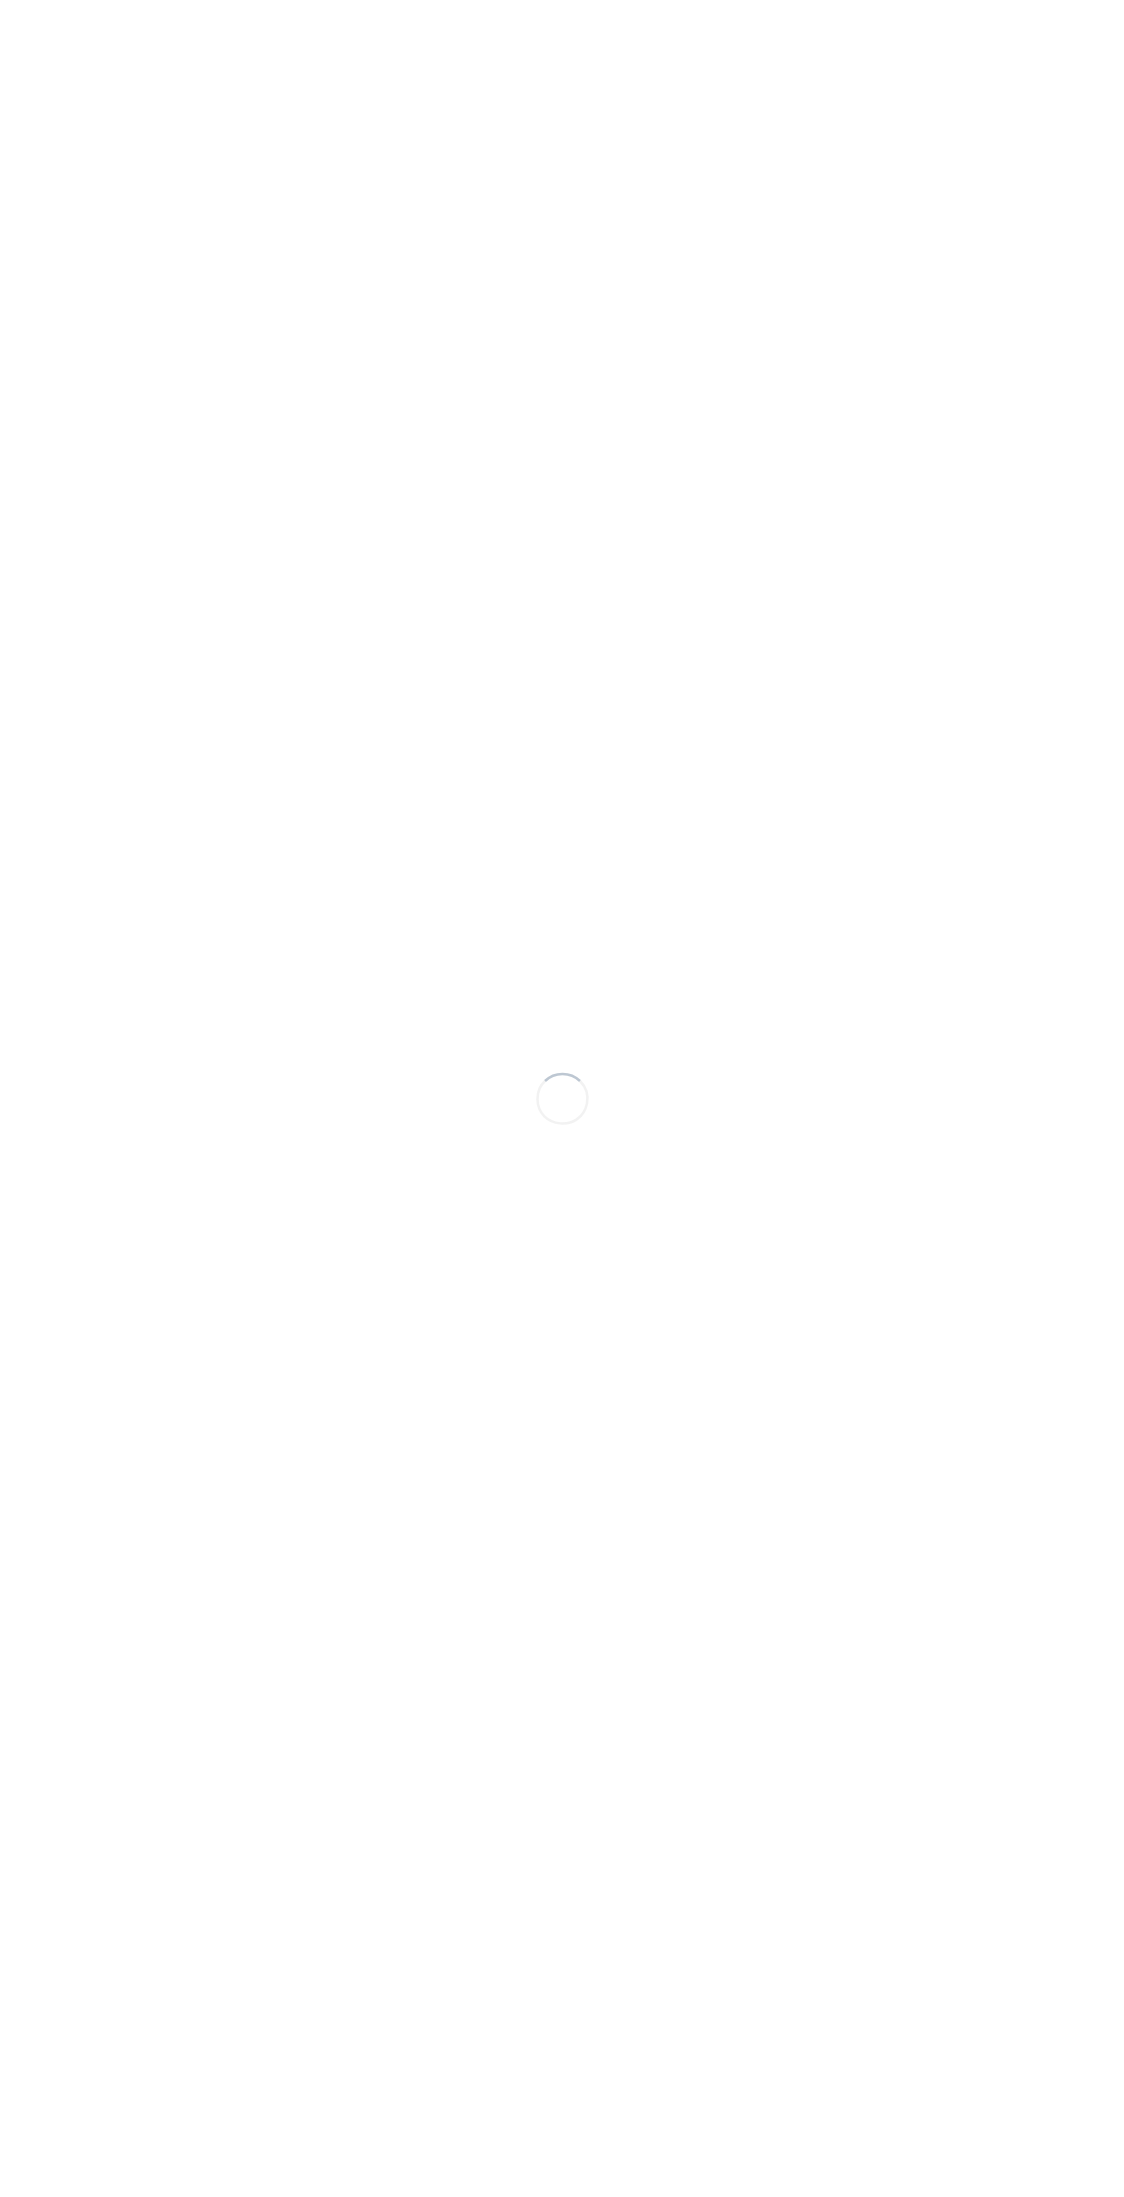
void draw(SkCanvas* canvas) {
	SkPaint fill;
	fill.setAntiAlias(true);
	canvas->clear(0xFFFFFFFF);
	fill.setStyle(SkPaint::kStroke_Style);
	fill.setStrokeWidth(2.5f);
	fill.setColor(0xFFBDC7D2);
	canvas->drawPath(SkPathBuilder().moveTo(545, 1081).cubicTo(554.5f, 1071.5f, 570.5f, 1071.5f, 580, 1081).detach(), fill);
	fill.setColor(0x4DD5D5D5);
	canvas->drawPath(SkPathBuilder().moveTo(580, 1081).cubicTo(586, 1087, 588.5f, 1095.5f, 587, 1103.5f).cubicTo(581, 1133, 537.5f, 1128.5f, 537.5f, 1099).cubicTo(537.5f, 1092, 540, 1085.5f, 545, 1081).detach(), fill);
}
